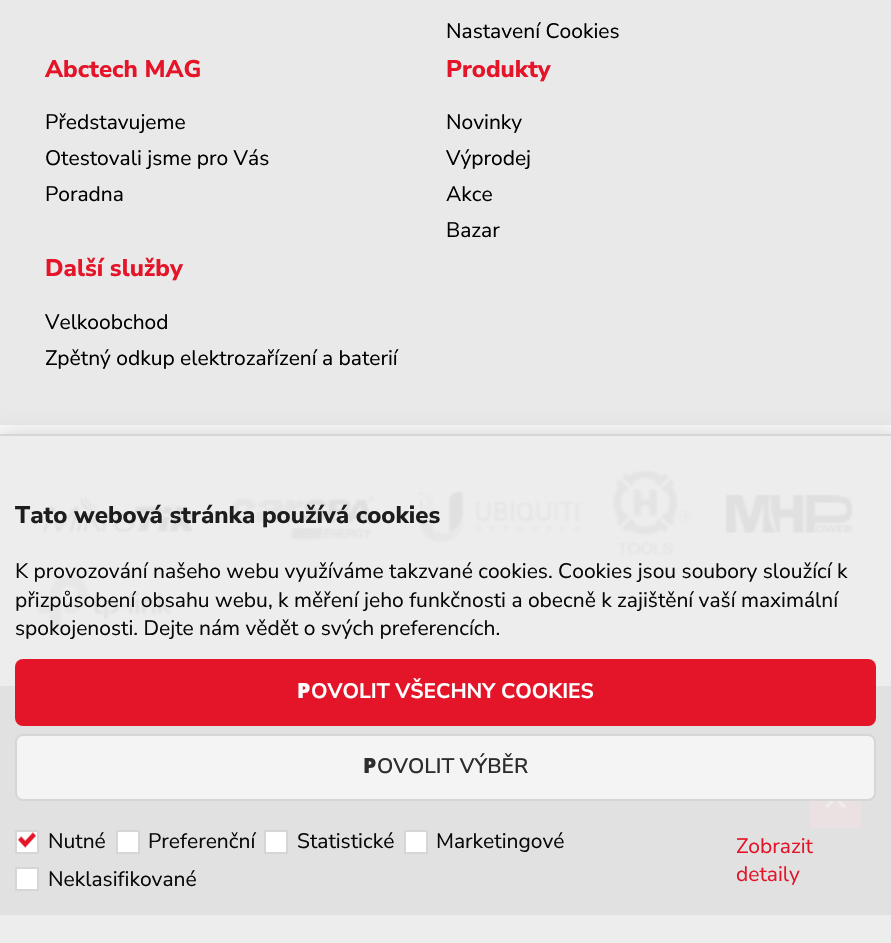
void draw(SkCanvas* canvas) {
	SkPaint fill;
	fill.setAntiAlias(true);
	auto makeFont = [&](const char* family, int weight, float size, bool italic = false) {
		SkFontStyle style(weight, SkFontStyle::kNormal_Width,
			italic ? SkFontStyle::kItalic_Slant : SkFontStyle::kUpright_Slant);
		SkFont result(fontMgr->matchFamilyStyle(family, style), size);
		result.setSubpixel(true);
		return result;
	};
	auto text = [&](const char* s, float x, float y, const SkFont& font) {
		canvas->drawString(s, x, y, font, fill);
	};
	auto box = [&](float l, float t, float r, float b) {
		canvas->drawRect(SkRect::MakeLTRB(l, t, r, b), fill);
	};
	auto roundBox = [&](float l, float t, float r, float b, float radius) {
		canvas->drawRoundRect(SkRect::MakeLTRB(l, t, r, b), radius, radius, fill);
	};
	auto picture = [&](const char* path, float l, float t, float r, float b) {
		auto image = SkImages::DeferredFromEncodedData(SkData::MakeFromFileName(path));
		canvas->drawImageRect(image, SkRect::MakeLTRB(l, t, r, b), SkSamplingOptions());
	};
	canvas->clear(0xFFFFFFFF);
	fill.setColor(0xFFEDEDED);
	box(0, 436, 891, 943);
	fill.setColor(0xFFE9E9E9);
	box(0, 0, 891, 425);
	picture("image0.png", 42, 494, 198, 533);
	picture("image1.png", 227, 494, 376, 541);
	picture("image2.png", 419, 491, 584, 542);
	picture("image3.png", 611, 469, 692, 556);
	picture("image4.png", 725, 494, 853, 533);
	picture("image5.png", 35, 574, 173, 628);
	fill.setColor(0xFFE1E1E1);
	box(0, 686, 891, 915);
	fill.setColor(0xFFECE1E2);
	box(810, 801, 861, 828);
	picture("image6.png", 825, 801, 846, 809);
	canvas->save();
	canvas->clipRect(SkRect::MakeLTRB(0, 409, 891, 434));
	fill.setColor(0xFFD6D6D6);
	fill.setMaskFilter(SkMaskFilter::MakeBlur(kNormal_SkBlurStyle, 10.5f));
	canvas->drawRect(SkRect::MakeLTRB(-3, 431, 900, 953), fill);
	fill.setMaskFilter(nullptr);
	canvas->restore();
	box(0, 434, 891, 436);
	fill.setColor(0xFFE41529);
	roundBox(15, 659, 876, 726, 8);
	fill.setColor(0xFFF4F4F4);
	canvas->drawRoundRect(SkRect::MakeLTRB(16, 735, 875, 800), 7, 7, fill);
	fill.setStyle(SkPaint::kStroke_Style);
	fill.setStrokeWidth(2);
	fill.setColor(0xFFD6D6D6);
	canvas->drawRoundRect(SkRect::MakeLTRB(16, 735, 875, 800), 7, 7, fill);
	fill.setStyle(SkPaint::kFill_Style);
	fill.setColor(0xFFFFFFFF);
	canvas->drawRect(SkRect::MakeLTRB(16, 831, 38, 853), fill);
	fill.setStyle(SkPaint::kStroke_Style);
	fill.setColor(0xFFD6D6D6);
	canvas->drawRect(SkRect::MakeLTRB(16, 831, 38, 853), fill);
	picture("image7.png", 18, 832, 36, 848);
	fill.setStyle(SkPaint::kFill_Style);
	fill.setColor(0xFFFFFFFF);
	canvas->drawRect(SkRect::MakeLTRB(117, 831, 139, 853), fill);
	fill.setStyle(SkPaint::kStroke_Style);
	fill.setColor(0xFFD6D6D6);
	canvas->drawRect(SkRect::MakeLTRB(117, 831, 139, 853), fill);
	fill.setStyle(SkPaint::kFill_Style);
	fill.setColor(0xFFFFFFFF);
	canvas->drawRect(SkRect::MakeLTRB(265, 831, 287, 853), fill);
	fill.setStyle(SkPaint::kStroke_Style);
	fill.setColor(0xFFD6D6D6);
	canvas->drawRect(SkRect::MakeLTRB(265, 831, 287, 853), fill);
	fill.setStyle(SkPaint::kFill_Style);
	fill.setColor(0xFFFFFFFF);
	canvas->drawRect(SkRect::MakeLTRB(405, 831, 427, 853), fill);
	fill.setStyle(SkPaint::kStroke_Style);
	fill.setColor(0xFFD6D6D6);
	canvas->drawRect(SkRect::MakeLTRB(405, 831, 427, 853), fill);
	fill.setStyle(SkPaint::kFill_Style);
	fill.setColor(0xFFFFFFFF);
	canvas->drawRect(SkRect::MakeLTRB(16, 868, 38, 890), fill);
	fill.setStyle(SkPaint::kStroke_Style);
	fill.setColor(0xFFD6D6D6);
	canvas->drawRect(SkRect::MakeLTRB(16, 868, 38, 890), fill);
	auto font1 = makeFont("Nunito Sans", 400, 21);
	fill.setStyle(SkPaint::kFill_Style);
	fill.setColor(0xFF000000);
	text("Nastavení Cookies", 446, 38, font1);
	auto font2 = makeFont("Nunito Sans", 800, 24);
	fill.setColor(0xFFE41529);
	text("Abctech MAG", 45, 77, font2);
	fill.setColor(0xFF000000);
	text("Představujeme", 45, 129, font1);
	text("Otestovali jsme pro Vás", 45, 165, font1);
	text("Poradna", 45, 201, font1);
	fill.setColor(0xFFE41529);
	text("Produkty", 446, 77, font2);
	fill.setColor(0xFF000000);
	text("Novinky", 446, 129, font1);
	text("Výprodej", 446, 165, font1);
	text("Akce", 446, 201, font1);
	text("Bazar", 446, 237, font1);
	fill.setColor(0xFFE41529);
	text("Další služby", 45, 276, font2);
	fill.setColor(0xFF000000);
	text("Velkoobchod", 45, 329, font1);
	text("Zpětný odkup elektrozařízení a baterií", 45, 365, font1);
	fill.setColor(0xFF1D1D1D);
	text("Tato webová stránka používá cookies", 15, 523, font2);
	fill.setColor(0xFF090909);
	text("K provozování našeho webu využíváme takzvané cookies. Cookies jsou soubory sloužící k", 15, 578, font1);
	text("přizpůsobení obsahu webu, k měření jeho funkčnosti a obecně k zajištění vaší maximální", 15, 607, font1);
	text("spokojenosti. Dejte nám vědět o svých preferencích.", 15, 635, font1);
	auto font3 = makeFont("Noto Sans", 900, 21);
	fill.setColor(0xFFFFFFFF);
	text("P", 297, 698, font3);
	auto font4 = makeFont("Nunito Sans", 700, 21);
	text("OVOLIT VŠECHNY COOKIES", 311, 698, font4);
	fill.setColor(0xFF2E2C2C);
	text("P", 363, 773, font3);
	auto font5 = makeFont("Nunito Sans", 600, 21);
	text("OVOLIT VÝBĚR", 377, 773, font5);
	fill.setColor(0xFF090909);
	text("Nutné", 48, 848, font1);
	text("Preferenční", 148, 848, font1);
	text("Statistické", 297, 848, font1);
	text("Marketingové", 436, 848, font1);
	text("Neklasifikované", 48, 886, font1);
	fill.setColor(0xFFE41529);
	text("Zobrazit", 736, 853, font1);
	text("detaily", 736, 881, font1);
}
